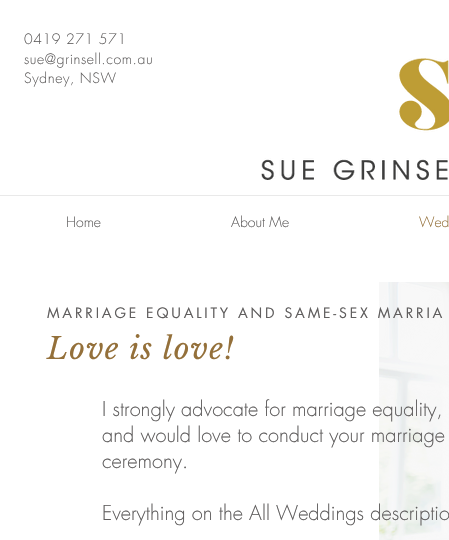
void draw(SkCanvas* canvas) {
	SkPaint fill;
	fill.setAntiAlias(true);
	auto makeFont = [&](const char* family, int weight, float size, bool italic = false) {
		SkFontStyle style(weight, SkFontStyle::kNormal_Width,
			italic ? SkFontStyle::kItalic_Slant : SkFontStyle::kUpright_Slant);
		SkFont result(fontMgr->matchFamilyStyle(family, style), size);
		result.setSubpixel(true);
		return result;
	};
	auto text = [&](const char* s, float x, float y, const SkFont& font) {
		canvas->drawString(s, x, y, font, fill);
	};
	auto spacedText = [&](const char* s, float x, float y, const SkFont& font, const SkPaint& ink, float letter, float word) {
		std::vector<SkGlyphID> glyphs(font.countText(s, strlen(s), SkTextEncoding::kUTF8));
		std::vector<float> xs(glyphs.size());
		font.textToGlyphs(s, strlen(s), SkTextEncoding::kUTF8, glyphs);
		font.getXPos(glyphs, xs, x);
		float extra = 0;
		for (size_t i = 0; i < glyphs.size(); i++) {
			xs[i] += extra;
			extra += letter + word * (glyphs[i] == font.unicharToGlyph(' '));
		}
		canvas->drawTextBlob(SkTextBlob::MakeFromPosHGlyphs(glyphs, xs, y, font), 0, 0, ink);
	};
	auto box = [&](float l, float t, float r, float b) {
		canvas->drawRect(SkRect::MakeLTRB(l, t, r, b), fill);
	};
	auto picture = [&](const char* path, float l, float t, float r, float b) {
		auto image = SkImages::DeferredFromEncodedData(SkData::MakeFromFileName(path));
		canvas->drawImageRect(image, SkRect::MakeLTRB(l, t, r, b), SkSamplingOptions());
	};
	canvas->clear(0xFFFFFFFF);
	picture("image0.png", 261, 58, 449, 180);
	fill.setColor(0xFFE9E9E9);
	box(0, 195, 449, 196);
	picture("image1.png", 379, 282, 449, 540);
	auto font1 = makeFont("futura", 300, 14);
	fill.setColor(0xFF605E5E);
	spacedText("0419 271 571", 24, 44, font1, fill, 0.6f, 0);
	spacedText("sue@grinsell.com.au", 24, 64, font1, fill, 0.6f, 0);
	spacedText("Sydney, NSW", 24, 83, font1, fill, 0.6f, 0);
	text("Home", 66, 227, font1);
	text("About Me", 231, 227, font1);
	fill.setColor(0xFF94703A);
	text("Wed", 419, 227, font1);
	auto font2 = makeFont("futura", 400, 14);
	fill.setColor(0xFF605E5E);
	spacedText("MARRIAGE EQUALITY AND SAME-SEX MARRIA", 47, 318, font2, fill, 2.8f, 0);
	auto font3 = makeFont("Libre Baskerville", 400, 30, true);
	fill.setColor(0xFF94703A);
	spacedText("Love is love!", 47, 359, font3, fill, 1.25f, 0);
	auto font4 = makeFont("futura", 300, 20);
	fill.setColor(0xFF605E5E);
	text("I strongly advocate for marriage equality,", 102, 416, font4);
	text("and would love to conduct your marriage", 102, 442, font4);
	text("ceremony.", 102, 468, font4);
	text("Everything on the All Weddings descriptio", 102, 520, font4);
}
